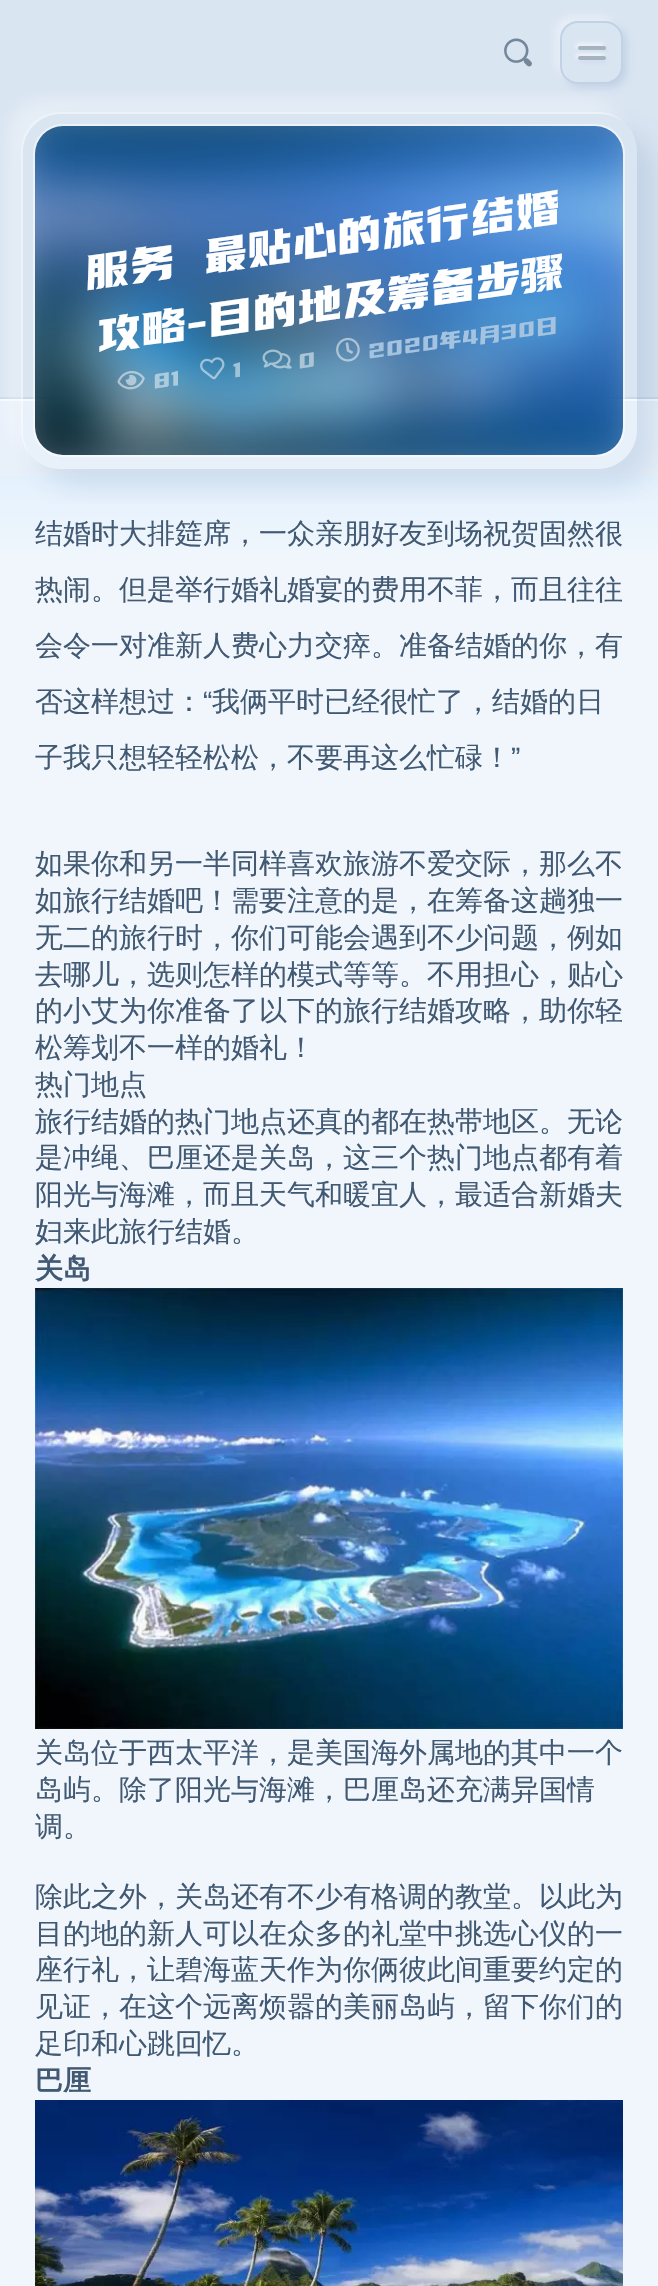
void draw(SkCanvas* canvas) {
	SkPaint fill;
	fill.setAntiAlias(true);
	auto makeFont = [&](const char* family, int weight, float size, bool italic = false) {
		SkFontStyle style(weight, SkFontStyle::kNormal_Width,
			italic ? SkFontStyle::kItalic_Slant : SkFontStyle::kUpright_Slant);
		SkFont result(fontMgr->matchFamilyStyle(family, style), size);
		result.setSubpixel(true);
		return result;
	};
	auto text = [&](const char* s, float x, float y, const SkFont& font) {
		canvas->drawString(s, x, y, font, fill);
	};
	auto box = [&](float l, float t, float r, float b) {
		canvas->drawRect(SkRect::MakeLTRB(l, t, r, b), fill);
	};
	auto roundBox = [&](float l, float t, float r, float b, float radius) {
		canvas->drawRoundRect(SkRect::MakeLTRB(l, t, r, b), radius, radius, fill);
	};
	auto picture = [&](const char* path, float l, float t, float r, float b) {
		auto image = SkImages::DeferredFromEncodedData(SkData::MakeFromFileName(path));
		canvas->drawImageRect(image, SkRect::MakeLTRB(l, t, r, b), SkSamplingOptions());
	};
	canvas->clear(0xFFDAE5F2);
	picture("image0.png", 504, 38, 532, 67);
	canvas->save();
	canvas->clipPath(SkPathBuilder(SkPathFillType::kEvenOdd).moveTo(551, 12).lineTo(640, 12).lineTo(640, 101).lineTo(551, 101).close().moveTo(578, 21).lineTo(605, 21).cubicTo(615, 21, 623, 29, 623, 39).lineTo(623, 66).cubicTo(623, 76, 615, 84, 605, 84).lineTo(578, 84).cubicTo(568, 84, 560, 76, 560, 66).lineTo(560, 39).cubicTo(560, 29, 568, 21, 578, 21).close().detach(), true);
	fill.setColor(0x26366498);
	fill.setMaskFilter(SkMaskFilter::MakeBlur(kNormal_SkBlurStyle, 4));
	canvas->drawRoundRect(SkRect::MakeLTRB(564, 25, 627, 88), 18, 18, fill);
	fill.setMaskFilter(nullptr);
	canvas->restore();
	canvas->save();
	canvas->clipPath(SkPathBuilder(SkPathFillType::kEvenOdd).moveTo(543, 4).lineTo(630, 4).lineTo(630, 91).lineTo(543, 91).close().moveTo(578, 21).lineTo(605, 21).cubicTo(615, 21, 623, 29, 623, 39).lineTo(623, 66).cubicTo(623, 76, 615, 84, 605, 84).lineTo(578, 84).cubicTo(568, 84, 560, 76, 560, 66).lineTo(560, 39).cubicTo(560, 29, 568, 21, 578, 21).close().detach(), true);
	fill.setColor(0x59FFFFFF);
	fill.setMaskFilter(SkMaskFilter::MakeBlur(kNormal_SkBlurStyle, 3.5f));
	canvas->drawRoundRect(SkRect::MakeLTRB(555, 16, 618, 79), 18, 18, fill);
	fill.setMaskFilter(nullptr);
	canvas->restore();
	fill.setColor(0xFFCAD8E9);
	box(0, 397, 658, 399);
	fill.setColor(0xFFE8F0FA);
	box(0, 401, 658, 476);
	fill.setColor(0xFFF6F9FD);
	box(0, 399, 658, 401);
	picture("image1.png", 35, 126, 623, 455);
	{
		const SkColor colors[] = {0xFFE4F1FD, 0xFFF0F6FC};
		const float stops[] = {0, 0.02f};
		const SkPoint ends[] = {{329, 476}, {329, 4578}};
		fill.setShader(SkGradientShader::MakeLinear(ends, colors, stops, 2, SkTileMode::kClamp));
		fill.setAlpha(255);
	}
	box(0, 476, 658, 2286);
	canvas->save();
	canvas->clipRect(SkRect::MakeLTRB(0, 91, 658, 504));
	canvas->clipPath(SkPathBuilder(SkPathFillType::kEvenOdd).moveTo(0, 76).lineTo(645, 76).lineTo(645, 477).lineTo(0, 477).close().moveTo(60, 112).lineTo(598, 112).cubicTo(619.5f, 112, 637, 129.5f, 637, 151).lineTo(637, 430).cubicTo(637, 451.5f, 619.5f, 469, 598, 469).lineTo(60, 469).cubicTo(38.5f, 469, 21, 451.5f, 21, 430).lineTo(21, 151).cubicTo(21, 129.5f, 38.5f, 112, 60, 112).close().detach(), true);
	fill.setShader(nullptr);
	fill.setColor(0x4DFFFFFF);
	fill.setMaskFilter(SkMaskFilter::MakeBlur(kNormal_SkBlurStyle, 7));
	canvas->drawRoundRect(SkRect::MakeLTRB(7, 98, 623, 455), 39, 39, fill);
	fill.setMaskFilter(nullptr);
	canvas->restore();
	fill.setStyle(SkPaint::kStroke_Style);
	fill.setStrokeWidth(2);
	fill.setColor(0x26366498);
	canvas->drawRoundRect(SkRect::MakeLTRB(561, 22, 622, 83), 17, 17, fill);
	fill.setStyle(SkPaint::kFill_Style);
	fill.setColor(0x1A366498);
	fill.setMaskFilter(SkMaskFilter::MakeBlur(kNormal_SkBlurStyle, 2));
	canvas->drawRoundRect(SkRect::MakeLTRB(579, 47, 607, 51), 2, 2, fill);
	fill.setMaskFilter(nullptr);
	fill.setColor(0xCCFFFFFF);
	fill.setMaskFilter(SkMaskFilter::MakeBlur(kNormal_SkBlurStyle, 2));
	canvas->drawRoundRect(SkRect::MakeLTRB(576, 44, 604, 48), 2, 2, fill);
	fill.setMaskFilter(nullptr);
	fill.setColor(0xFFA5B3C1);
	roundBox(578, 46, 606, 50, 2);
	fill.setColor(0x1A366498);
	fill.setMaskFilter(SkMaskFilter::MakeBlur(kNormal_SkBlurStyle, 2));
	canvas->drawRoundRect(SkRect::MakeLTRB(579, 58, 607, 62), 2, 2, fill);
	fill.setMaskFilter(nullptr);
	fill.setColor(0xCCFFFFFF);
	fill.setMaskFilter(SkMaskFilter::MakeBlur(kNormal_SkBlurStyle, 2));
	canvas->drawRoundRect(SkRect::MakeLTRB(576, 54, 604, 58), 2, 2, fill);
	fill.setMaskFilter(nullptr);
	fill.setColor(0xFFA5B3C1);
	roundBox(578, 56, 606, 60, 2);
	canvas->save();
	canvas->clipRect(SkRect::MakeLTRB(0, 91, 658, 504));
	canvas->clipPath(SkPathBuilder(SkPathFillType::kEvenOdd).moveTo(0, 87).lineTo(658, 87).lineTo(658, 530).lineTo(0, 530).close().moveTo(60, 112).lineTo(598, 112).cubicTo(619.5f, 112, 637, 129.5f, 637, 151).lineTo(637, 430).cubicTo(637, 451.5f, 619.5f, 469, 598, 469).lineTo(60, 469).cubicTo(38.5f, 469, 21, 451.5f, 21, 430).lineTo(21, 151).cubicTo(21, 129.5f, 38.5f, 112, 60, 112).close().detach(), true);
	fill.setColor(0x26366498);
	fill.setMaskFilter(SkMaskFilter::MakeBlur(kNormal_SkBlurStyle, 14));
	canvas->drawRoundRect(SkRect::MakeLTRB(39, 130, 655, 487), 39, 39, fill);
	fill.setMaskFilter(nullptr);
	canvas->restore();
	fill.setColor(0x80FFFFFF);
	canvas->drawPath(SkPathBuilder().moveTo(61, 114).lineTo(600, 114).cubicTo(609, 114, 617, 117, 624, 122).cubicTo(617, 116, 608, 112, 598, 112).lineTo(60, 112).cubicTo(38, 112, 21, 129, 21, 151).lineTo(21, 430).cubicTo(21, 440, 25, 449, 31, 456).cubicTo(26, 449, 23, 441, 23, 432).lineTo(23, 152).cubicTo(23, 131, 40, 114, 61, 114).close().detach(), fill);
	fill.setStyle(SkPaint::kStroke_Style);
	canvas->drawRoundRect(SkRect::MakeLTRB(34, 125, 624, 456), 29, 29, fill);
	fill.setStyle(SkPaint::kFill_Style);
	fill.setColor(0x33366498);
	roundBox(35, 126, 623, 455, 28);
	picture("image2.png", 117, 370, 145, 390);
	picture("image3.png", 200, 357, 225, 380);
	picture("image6.png", 35, 1288, 623, 1729);
	picture("image7.png", 35, 2100, 623, 2286);
	auto font1 = makeFont("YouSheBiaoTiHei", 400, 49);
	fill.setColor(0xFFFFFFFF);
	canvas->save();
	canvas->rotate(-8, 87, 290);
	text("服务", 87, 290, font1);
	canvas->restore();
	canvas->save();
	canvas->rotate(-8, 205, 274);
	text("最贴心的旅行结婚", 205, 274, font1);
	canvas->restore();
	canvas->save();
	canvas->rotate(-8, 99, 353);
	text("攻略-目的地及筹备步骤", 99, 353, font1);
	canvas->restore();
	auto font2 = makeFont("YouSheBiaoTiHei", 400, 24.5f);
	fill.setColor(0xFFACCCDE);
	canvas->save();
	canvas->rotate(-8, 154, 390);
	text("81", 154, 390, font2);
	canvas->restore();
	fill.setColor(0xFFA0C3D8);
	canvas->save();
	canvas->rotate(-8, 234, 379);
	text("1", 234, 379, font2);
	canvas->restore();
	picture("image4.png", 262, 349, 292, 369);
	fill.setColor(0xFFAAC5D5);
	canvas->save();
	canvas->rotate(-8, 299, 370);
	text("0", 299, 370, font2);
	canvas->restore();
	picture("image5.png", 336, 337, 360, 362);
	fill.setColor(0xFFA4C3E0);
	canvas->save();
	canvas->rotate(-8, 369, 360);
	text("2020年4月30日", 369, 360, font2);
	canvas->restore();
	auto font3 = makeFont("WenQuanYi Zen Hei", 500, 28);
	fill.setColor(0xFF415973);
	text("结婚时大排筵席，一众亲朋好友到场祝贺固然很", 35, 543, font3);
	text("热闹。但是举行婚礼婚宴的费用不菲，而且往往", 35, 599, font3);
	text("会令一对准新人费心力交瘁。准备结婚的你，有", 35, 655, font3);
	text("否这样想过：", 35, 711, font3);
	auto font4 = makeFont("Liberation Sans", 400, 28);
	text("“", 203, 711, font4);
	text("我俩平时已经很忙了，结婚的日", 212, 711, font3);
	text("子我只想轻轻松松，不要再这么忙碌！", 35, 767, font3);
	text("”", 511, 767, font4);
	text("如果你和另一半同样喜欢旅游不爱交际，那么不", 35, 873, font3);
	text("如旅行结婚吧！需要注意的是，在筹备这趟独一", 35, 910, font3);
	text("无二的旅行时，你们可能会遇到不少问题，例如", 35, 947, font3);
	text("去哪儿，选则怎样的模式等等。不用担心，贴心", 35, 984, font3);
	text("的小艾为你准备了以下的旅行结婚攻略，助你轻", 35, 1020, font3);
	text("松筹划不一样的婚礼！", 35, 1057, font3);
	text("热门地点", 35, 1094, font3);
	text("旅行结婚的热门地点还真的都在热带地区。无论", 35, 1131, font3);
	text("是冲绳、巴厘还是关岛，这三个热门地点都有着", 35, 1167, font3);
	text("阳光与海滩，而且天气和暖宜人，最适合新婚夫", 35, 1204, font3);
	text("妇来此旅行结婚。", 35, 1241, font3);
	auto font5 = makeFont("WenQuanYi Zen Hei", 700, 28);
	text("关岛", 35, 1278, font5);
	text("关岛位于西太平洋，是美国海外属地的其中一个", 35, 1762, font3);
	text("岛屿。除了阳光与海滩，巴厘岛还充满异国情", 35, 1799, font3);
	text("调。", 35, 1836, font3);
	text("除此之外，关岛还有不少有格调的教堂。以此为", 35, 1906, font3);
	text("目的地的新人可以在众多的礼堂中挑选心仪的一", 35, 1943, font3);
	text("座行礼，让碧海蓝天作为你俩彼此间重要约定的", 35, 1979, font3);
	text("见证，在这个远离烦嚣的美丽岛屿，留下你们的", 35, 2016, font3);
	text("足印和心跳回忆。", 35, 2053, font3);
	text("巴厘", 35, 2090, font5);
}
